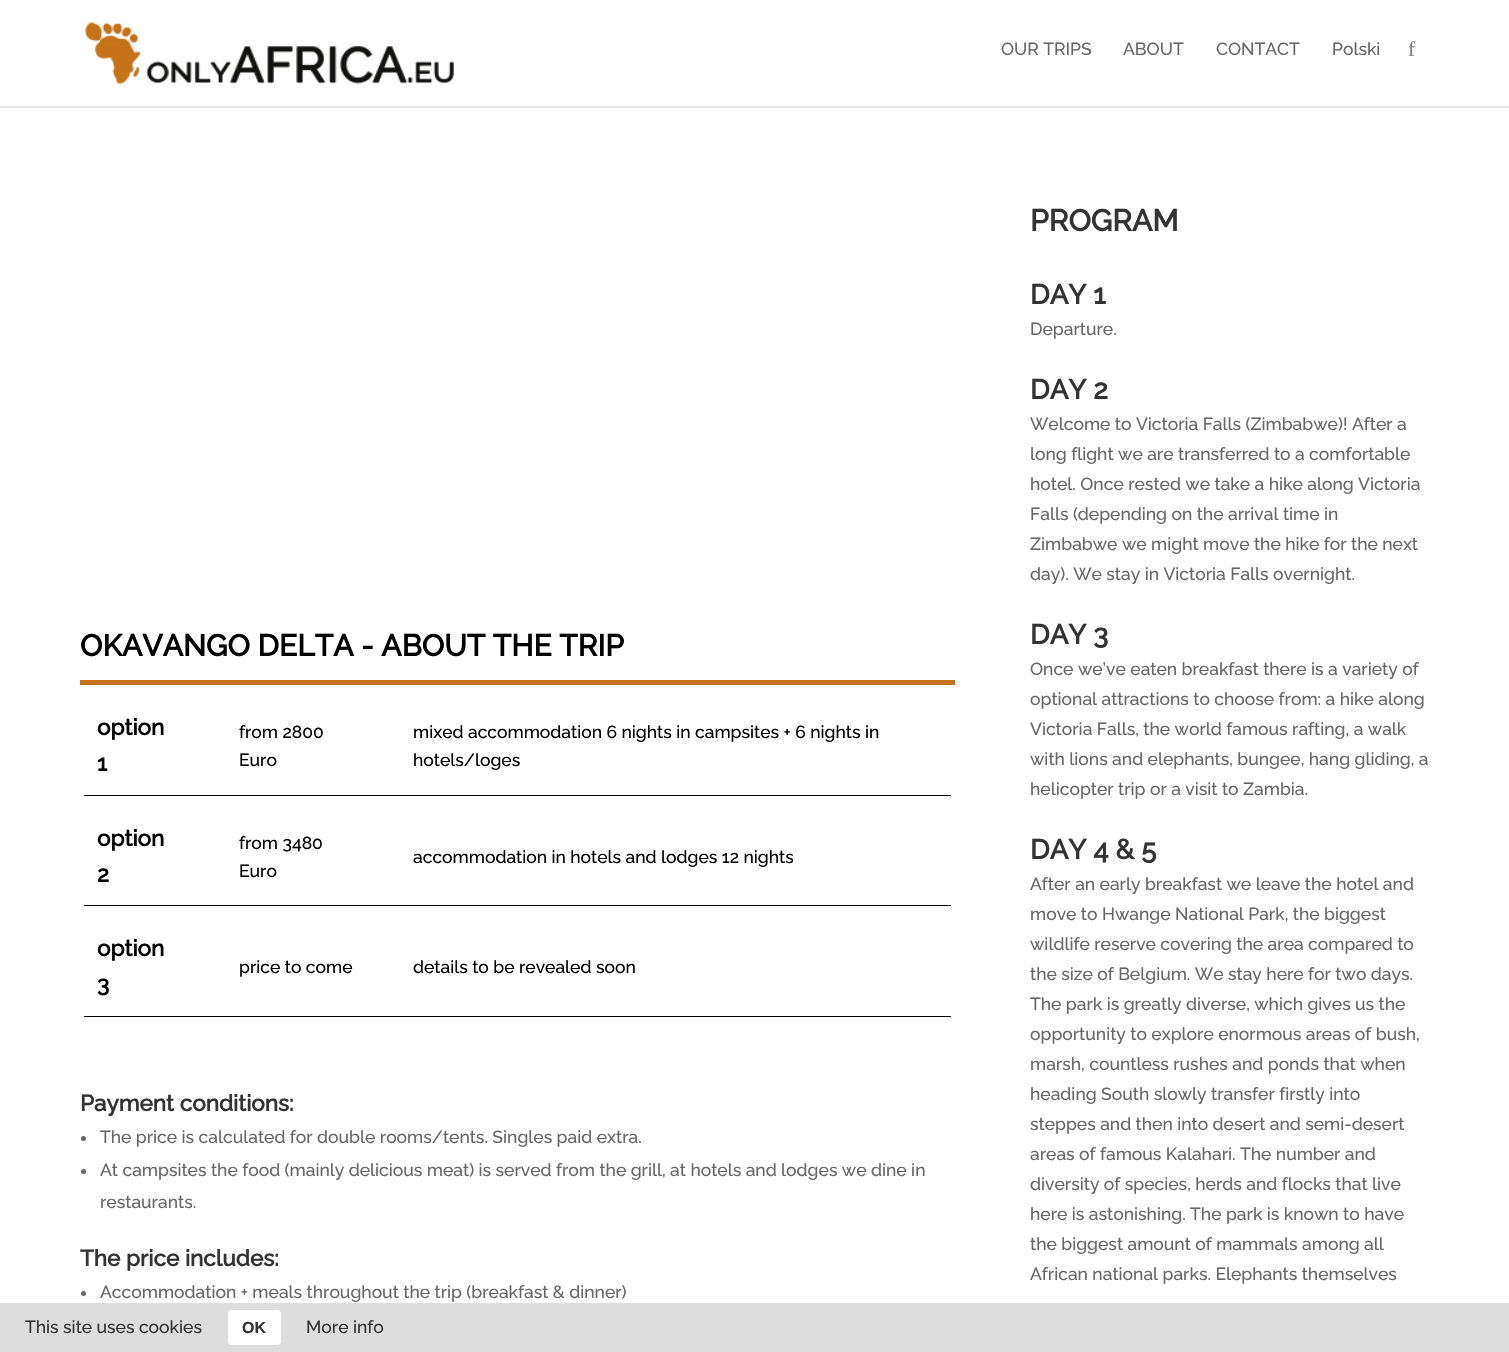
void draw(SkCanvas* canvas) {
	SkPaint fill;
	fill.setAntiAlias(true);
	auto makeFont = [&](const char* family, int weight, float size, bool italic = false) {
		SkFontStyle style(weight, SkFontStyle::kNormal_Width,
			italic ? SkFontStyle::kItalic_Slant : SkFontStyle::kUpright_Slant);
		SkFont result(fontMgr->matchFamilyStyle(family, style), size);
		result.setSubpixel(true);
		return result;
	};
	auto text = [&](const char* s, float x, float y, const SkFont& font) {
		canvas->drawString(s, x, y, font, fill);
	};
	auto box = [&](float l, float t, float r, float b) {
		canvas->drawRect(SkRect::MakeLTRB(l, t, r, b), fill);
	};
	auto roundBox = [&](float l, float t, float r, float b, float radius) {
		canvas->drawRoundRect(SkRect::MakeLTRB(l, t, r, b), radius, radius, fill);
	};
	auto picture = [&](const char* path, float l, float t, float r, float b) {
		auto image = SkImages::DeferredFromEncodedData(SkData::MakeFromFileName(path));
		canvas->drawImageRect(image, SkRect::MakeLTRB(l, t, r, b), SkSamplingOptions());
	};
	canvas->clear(0xFFFFFFFF);
	fill.setColor(0xFFE6E6E6);
	box(0, 106, 1509, 108);
	picture("image0.png", 84, 22, 454, 84);
	fill.setColor(0xFFC67219);
	box(80, 680, 955, 685);
	fill.setColor(0xFF000000);
	box(84, 795, 951, 796);
	box(84, 905, 951, 906);
	box(84, 1016, 951, 1017);
	fill.setColor(0xFF666666);
	canvas->drawCircle(83.5f, 1138.5f, 2.5f, fill);
	canvas->drawCircle(83.5f, 1171.5f, 2.5f, fill);
	canvas->drawCircle(83.5f, 1293.5f, 2.5f, fill);
	fill.setColor(0xFFDDDDDD);
	box(0, 1303, 1509, 1352);
	fill.setColor(0xFFFFFFFF);
	roundBox(228, 1310, 281, 1345, 4);
	auto font1 = makeFont("Raleway", 100, 17.5f);
	fill.setColor(0xFF666666);
	text("OUR TRIPS", 1001, 55, font1);
	text("ABOUT", 1123, 55, font1);
	text("CONTACT", 1216, 55, font1);
	text("Polski", 1332, 55, font1);
	auto font2 = makeFont("Liberation Serif", 400, 21);
	fill.setColor(0xFF808080);
	text("f", 1408, 56, font2);
	auto font3 = makeFont("Raleway", 700, 30);
	fill.setColor(0xFF000000);
	text("OKAVANGO DELTA - ABOUT THE TRIP", 80, 656, font3);
	auto font4 = makeFont("Raleway", 700, 22.5f);
	text("option", 97, 735, font4);
	text("1", 97, 771, font4);
	text("from 2800", 239, 738, font1);
	text("Euro", 239, 766, font1);
	text("mixed accommodation 6 nights in campsites + 6 nights in", 413, 738, font1);
	text("hotels/loges", 413, 766, font1);
	text("option", 97, 846, font4);
	text("2", 97, 882, font4);
	text("from 3480", 239, 849, font1);
	text("Euro", 239, 877, font1);
	text("accommodation in hotels and lodges 12 nights", 413, 863, font1);
	text("option", 97, 956, font4);
	text("3", 97, 992, font4);
	text("price to come", 239, 973, font1);
	text("details to be revealed soon", 413, 973, font1);
	fill.setColor(0xFF333333);
	text("Payment conditions:", 80, 1111, font4);
	fill.setColor(0xFF666666);
	text("The price is calculated for double rooms/tents. Singles paid extra.", 100, 1143, font1);
	text("At campsites the food (mainly delicious meat) is served from the grill, at hotels and lodges we dine in", 100, 1176, font1);
	text("restaurants.", 100, 1208, font1);
	fill.setColor(0xFF333333);
	text("The price includes:", 80, 1266, font4);
	fill.setColor(0xFF666666);
	text("Accommodation + meals throughout the trip (breakfast & dinner)", 100, 1298, font1);
	fill.setColor(0xFF333333);
	text("PROGRAM", 1030, 231, font3);
	auto font5 = makeFont("Raleway", 700, 27.5f);
	text("DAY 1", 1030, 304, font5);
	fill.setColor(0xFF666666);
	text("Departure.", 1030, 335, font1);
	fill.setColor(0xFF333333);
	text("DAY 2", 1030, 399, font5);
	fill.setColor(0xFF666666);
	text("Welcome to Victoria Falls (Zimbabwe)! After a", 1030, 430, font1);
	text("long flight we are transferred to a comfortable", 1030, 460, font1);
	text("hotel. Once rested we take a hike along Victoria", 1030, 490, font1);
	text("Falls (depending on the arrival time in", 1030, 520, font1);
	text("Zimbabwe we might move the hike for the next", 1030, 550, font1);
	text("day). We stay in Victoria Falls overnight.", 1030, 580, font1);
	fill.setColor(0xFF333333);
	text("DAY 3", 1030, 644, font5);
	fill.setColor(0xFF666666);
	text("Once we’ve eaten breakfast there is a variety of", 1030, 675, font1);
	text("optional attractions to choose from: a hike along", 1030, 705, font1);
	text("Victoria Falls, the world famous rafting, a walk", 1030, 735, font1);
	text("with lions and elephants, bungee, hang gliding, a", 1030, 765, font1);
	text("helicopter trip or a visit to Zambia.", 1030, 795, font1);
	fill.setColor(0xFF333333);
	text("DAY 4 & 5", 1030, 859, font5);
	fill.setColor(0xFF666666);
	text("After an early breakfast we leave the hotel and", 1030, 890, font1);
	text("move to Hwange National Park, the biggest", 1030, 920, font1);
	text("wildlife reserve covering the area compared to", 1030, 950, font1);
	text("the size of Belgium. We stay here for two days.", 1030, 980, font1);
	text("The park is greatly diverse, which gives us the", 1030, 1010, font1);
	text("opportunity to explore enormous areas of bush,", 1030, 1040, font1);
	text("marsh, countless rushes and ponds that when", 1030, 1070, font1);
	text("heading South slowly transfer firstly into", 1030, 1100, font1);
	text("steppes and then into desert and semi-desert", 1030, 1130, font1);
	text("areas of famous Kalahari. The number and", 1030, 1160, font1);
	text("diversity of species, herds and flocks that live", 1030, 1190, font1);
	text("here is astonishing. The park is known to have", 1030, 1220, font1);
	text("the biggest amount of mammals among all", 1030, 1250, font1);
	text("African national parks. Elephants themselves", 1030, 1280, font1);
	fill.setColor(0xFF333333);
	text("This site uses cookies", 25, 1333, font1);
	auto font6 = makeFont("Liberation Sans", 700, 16);
	text("OK", 242, 1333, font6);
	text("More info", 306, 1333, font1);
}
